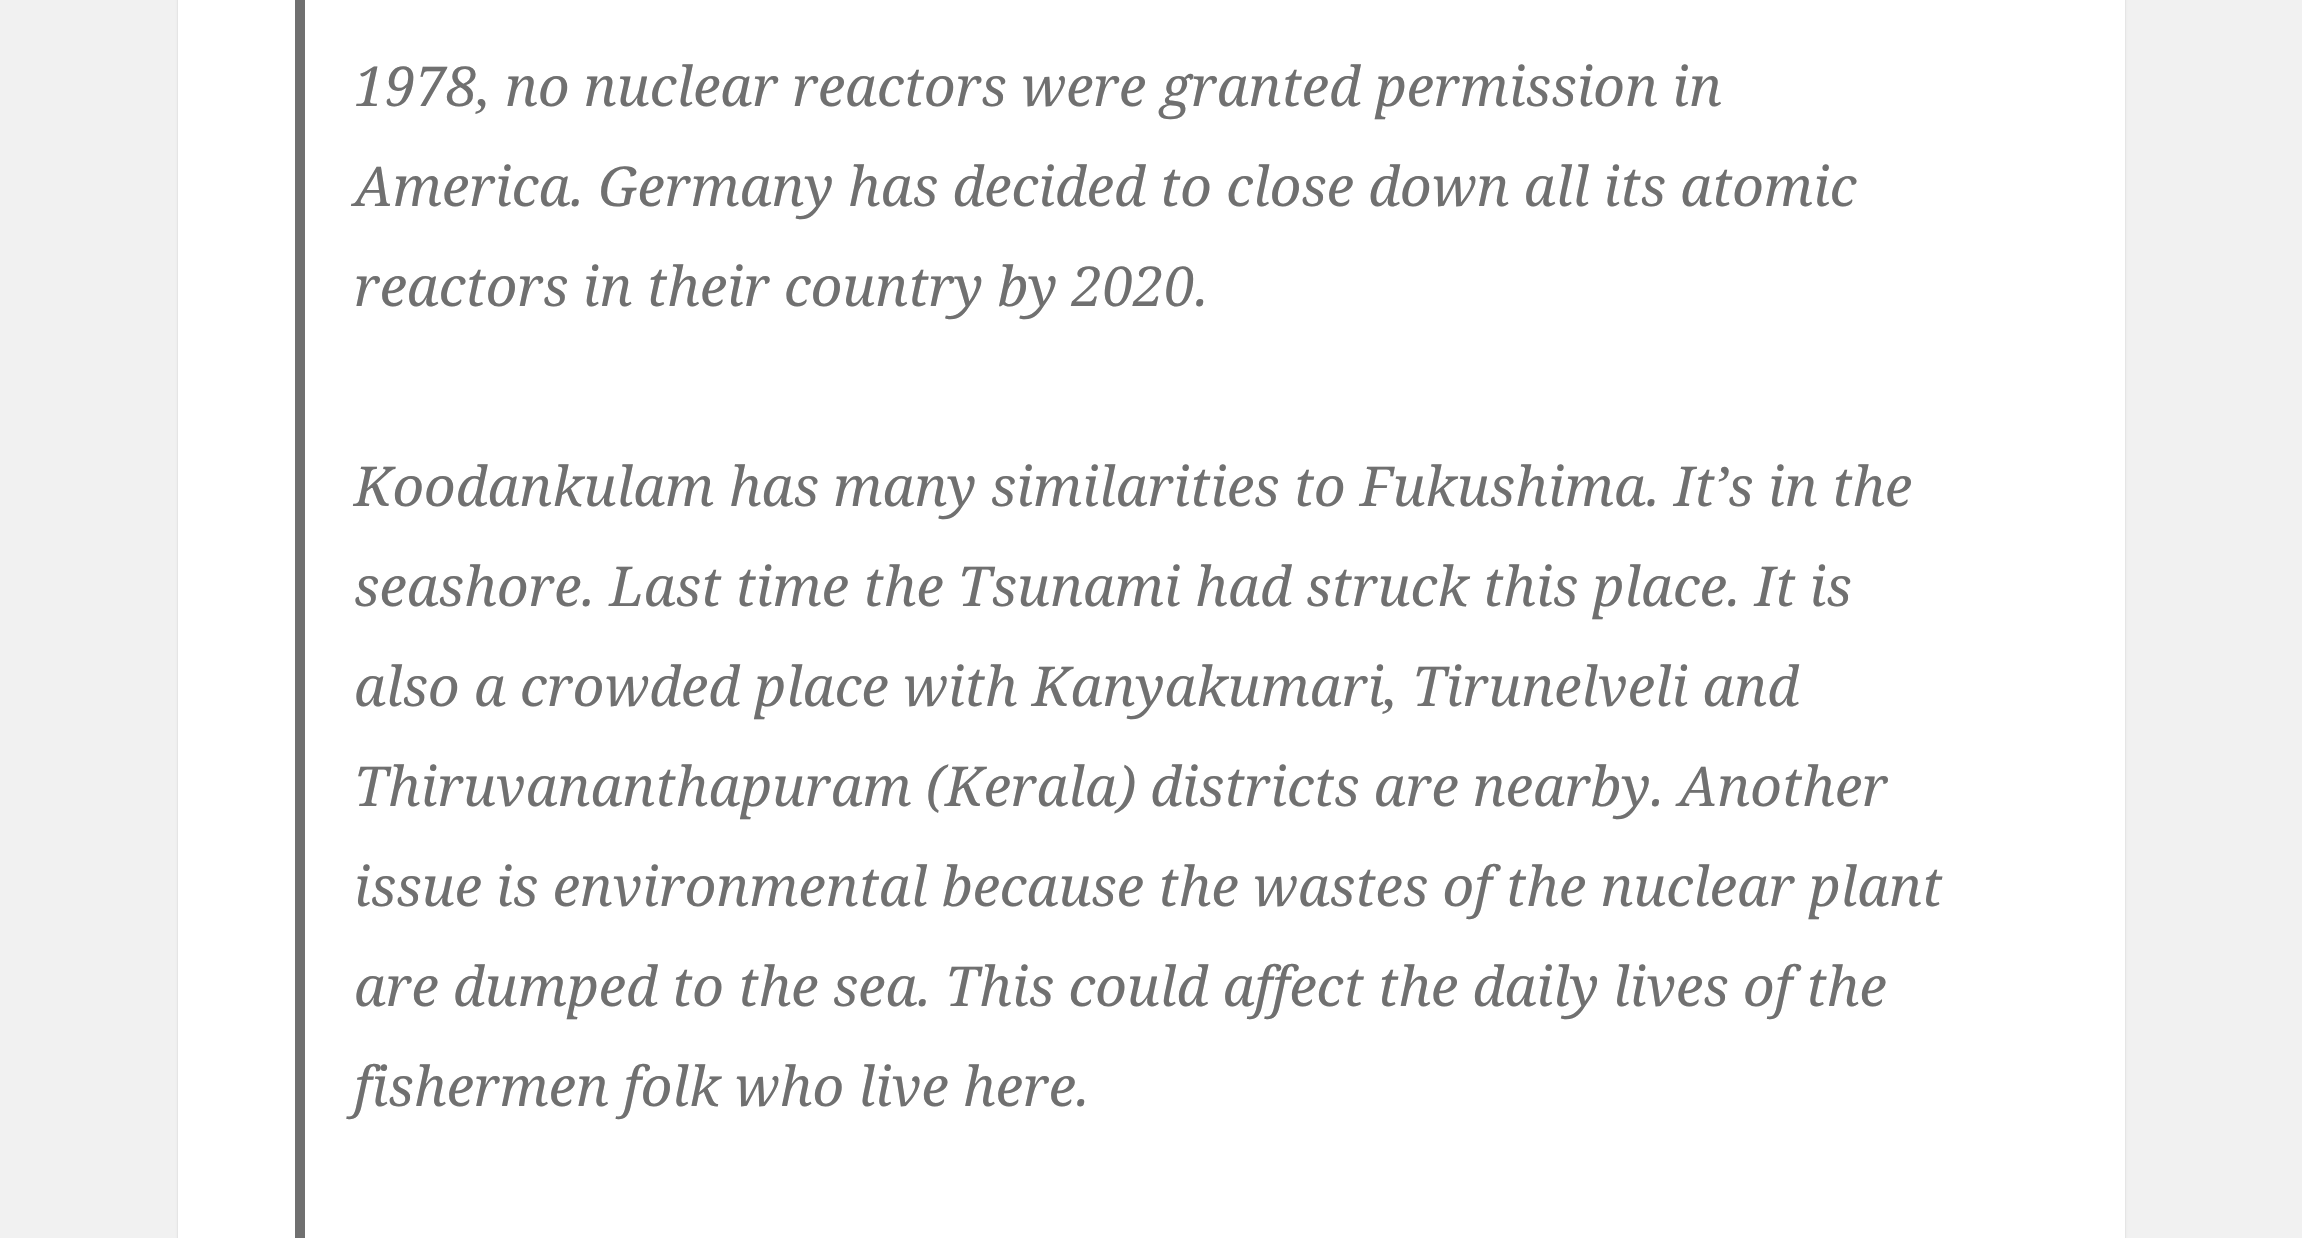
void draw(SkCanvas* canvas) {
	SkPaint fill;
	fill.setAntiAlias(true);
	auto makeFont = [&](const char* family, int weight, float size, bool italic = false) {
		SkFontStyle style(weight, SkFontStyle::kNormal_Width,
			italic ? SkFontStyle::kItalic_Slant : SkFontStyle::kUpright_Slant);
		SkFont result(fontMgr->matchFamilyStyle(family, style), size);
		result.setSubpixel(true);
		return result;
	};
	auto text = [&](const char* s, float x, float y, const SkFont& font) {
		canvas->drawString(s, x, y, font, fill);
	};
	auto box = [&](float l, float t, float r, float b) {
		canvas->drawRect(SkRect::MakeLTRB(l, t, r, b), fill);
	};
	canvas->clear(0xFFF1F1F1);
	fill.setColor(0x26000000);
	fill.setMaskFilter(SkMaskFilter::MakeBlur(kNormal_SkBlurStyle, 1));
	canvas->drawRect(SkRect::MakeLTRB(178, -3, 2125, 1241), fill);
	fill.setMaskFilter(nullptr);
	fill.setColor(0xFFFFFFFF);
	box(178, 0, 2125, 1238);
	fill.setColor(0xFF707070);
	box(295, 0, 305, 1238);
	auto font1 = makeFont("Noto Serif", 400, 55, true);
	text("1978, no nuclear reactors were granted permission in", 354, 106, font1);
	text("America. Germany has decided to close down all its atomic", 354, 206, font1);
	text("reactors in their country by 2020.", 354, 306, font1);
	text("Koodankulam has many similarities to Fukushima. It’s in the", 354, 506, font1);
	text("seashore. Last time the Tsunami had struck this place. It is", 354, 606, font1);
	text("also a crowded place with Kanyakumari, Tirunelveli and", 354, 706, font1);
	text("Thiruvananthapuram (Kerala) districts are nearby. Another", 354, 806, font1);
	text("issue is environmental because the wastes of the nuclear plant", 354, 906, font1);
	text("are dumped to the sea. This could affect the daily lives of the", 354, 1006, font1);
	text("fishermen folk who live here.", 354, 1106, font1);
}
